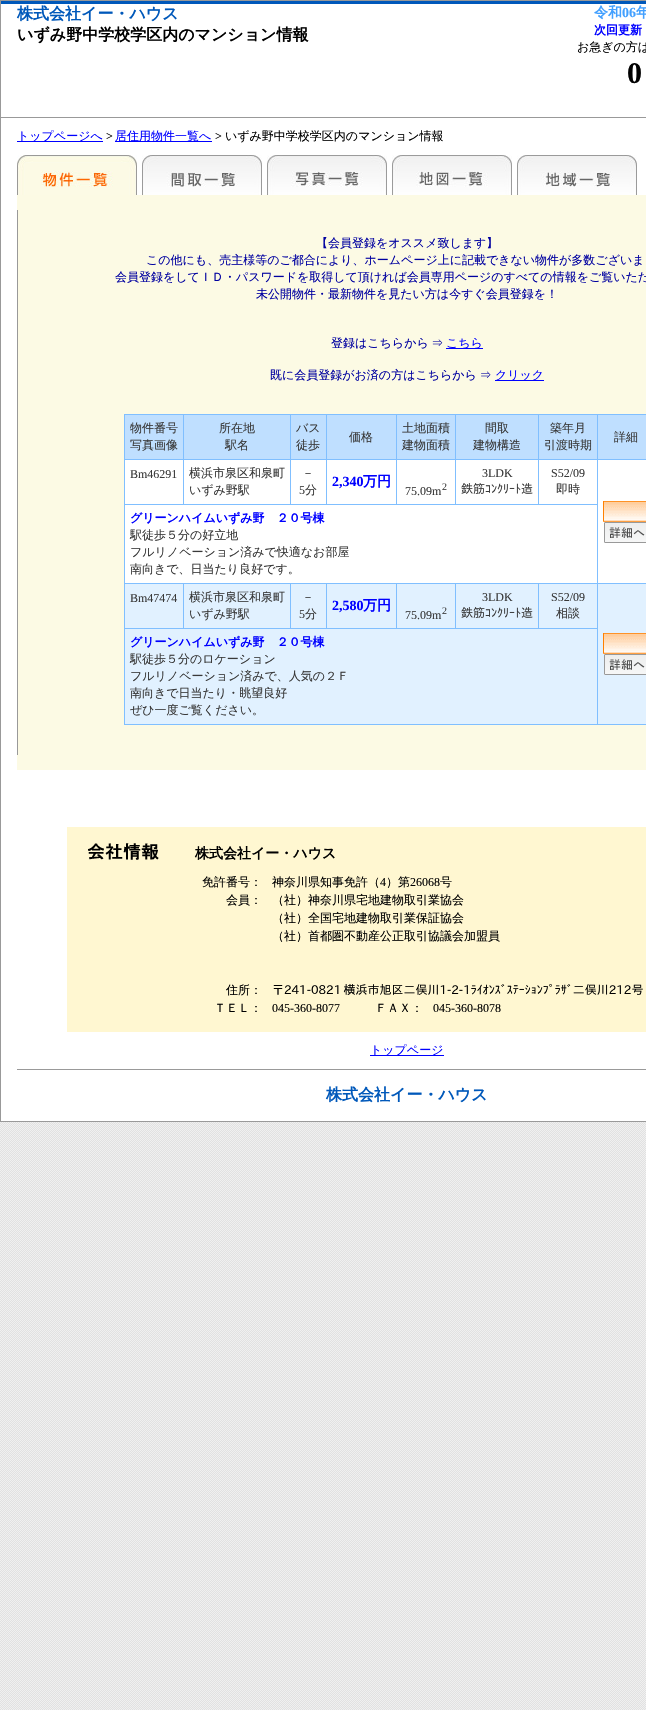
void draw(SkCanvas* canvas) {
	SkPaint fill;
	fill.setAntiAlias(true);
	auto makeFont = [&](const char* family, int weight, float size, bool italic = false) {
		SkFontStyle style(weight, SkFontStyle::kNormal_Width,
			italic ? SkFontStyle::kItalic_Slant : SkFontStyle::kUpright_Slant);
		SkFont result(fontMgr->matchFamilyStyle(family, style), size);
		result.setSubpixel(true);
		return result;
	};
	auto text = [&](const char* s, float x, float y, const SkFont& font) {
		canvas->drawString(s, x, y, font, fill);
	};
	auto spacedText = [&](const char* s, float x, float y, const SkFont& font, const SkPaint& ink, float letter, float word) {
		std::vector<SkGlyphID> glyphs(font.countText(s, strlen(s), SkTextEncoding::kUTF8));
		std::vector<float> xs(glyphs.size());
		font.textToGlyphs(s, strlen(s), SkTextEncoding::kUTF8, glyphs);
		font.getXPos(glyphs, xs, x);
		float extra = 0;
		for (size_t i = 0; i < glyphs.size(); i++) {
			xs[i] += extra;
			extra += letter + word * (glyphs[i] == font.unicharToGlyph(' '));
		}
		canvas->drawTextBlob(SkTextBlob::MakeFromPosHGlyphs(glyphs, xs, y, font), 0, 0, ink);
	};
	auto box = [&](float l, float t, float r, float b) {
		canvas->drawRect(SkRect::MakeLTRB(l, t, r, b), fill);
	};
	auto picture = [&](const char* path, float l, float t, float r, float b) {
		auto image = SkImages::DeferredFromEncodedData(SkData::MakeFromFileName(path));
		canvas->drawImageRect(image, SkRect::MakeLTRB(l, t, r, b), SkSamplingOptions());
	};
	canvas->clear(0xFFFFFFFF);
	picture("image0.png", 0, 1122, 646, 1710);
	fill.setStyle(SkPaint::kStroke_Style);
	fill.setStrokeWidth(1);
	fill.setColor(0xFF999999);
	canvas->drawRect(SkRect::MakeLTRB(0.5f, 0.5f, 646.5f, 1121.5f), fill);
	fill.setStyle(SkPaint::kFill_Style);
	fill.setColor(0xFF0058BA);
	box(1, 1, 646, 4);
	fill.setColor(0xFF999999);
	box(1, 117, 646, 118);
	fill.setColor(0xFF0000FF);
	box(17, 141, 103, 142);
	box(115, 141, 212, 142);
	picture("image1.png", 17, 155, 137, 195);
	picture("image2.png", 142, 155, 262, 195);
	picture("image3.png", 267, 155, 387, 195);
	picture("image4.png", 392, 155, 512, 195);
	picture("image5.png", 517, 155, 637, 195);
	fill.setColor(0xFFFCFAE4);
	box(17, 195, 646, 210);
	box(18, 210, 646, 755);
	fill.setColor(0xFF999999);
	box(17, 210, 18, 755);
	fill.setColor(0xFF0000FF);
	box(446, 348, 483, 349);
	box(495, 380, 544, 381);
	fill.setColor(0xFF80BFFF);
	box(124, 414, 646, 415);
	box(124, 724, 646, 725);
	box(124, 414, 125, 725);
	fill.setColor(0xFFBFDFFF);
	box(125, 415, 183, 459);
	box(184, 415, 290, 459);
	fill.setColor(0xFF80BFFF);
	box(597, 459, 646, 460);
	box(124, 504, 598, 505);
	box(597, 583, 646, 584);
	box(124, 628, 598, 629);
	box(597, 583, 598, 725);
	box(538, 583, 598, 584);
	box(597, 459, 598, 584);
	box(538, 459, 598, 460);
	box(538, 459, 539, 505);
	box(455, 459, 539, 460);
	box(455, 459, 456, 505);
	box(396, 459, 456, 460);
	box(396, 459, 397, 505);
	box(326, 459, 397, 460);
	box(326, 459, 327, 505);
	box(290, 459, 327, 460);
	box(290, 459, 291, 505);
	box(183, 459, 291, 460);
	box(183, 459, 184, 505);
	box(124, 459, 184, 460);
	box(183, 414, 184, 460);
	fill.setColor(0xFFBFDFFF);
	box(291, 415, 326, 459);
	fill.setColor(0xFF80BFFF);
	box(290, 414, 291, 460);
	fill.setColor(0xFFBFDFFF);
	box(327, 415, 396, 459);
	fill.setColor(0xFF80BFFF);
	box(326, 414, 327, 460);
	fill.setColor(0xFFBFDFFF);
	box(397, 415, 455, 459);
	fill.setColor(0xFF80BFFF);
	box(396, 414, 397, 460);
	fill.setColor(0xFFBFDFFF);
	box(456, 415, 538, 459);
	fill.setColor(0xFF80BFFF);
	box(455, 414, 456, 460);
	fill.setColor(0xFFBFDFFF);
	box(539, 415, 597, 459);
	fill.setColor(0xFF80BFFF);
	box(538, 414, 539, 460);
	fill.setColor(0xFFBFDFFF);
	box(598, 415, 646, 459);
	fill.setColor(0xFF80BFFF);
	box(597, 414, 598, 460);
	fill.setColor(0xFFFFFFFF);
	box(125, 460, 183, 504);
	box(184, 460, 290, 504);
	box(291, 460, 326, 504);
	box(327, 460, 396, 504);
	box(397, 460, 455, 504);
	box(456, 460, 538, 504);
	box(539, 460, 597, 504);
	box(598, 460, 646, 583);
	picture("image6.png", 603, 501, 646, 522);
	picture("image7.png", 604, 522, 646, 543);
	box(125, 505, 597, 583);
	fill.setColor(0xFFE1F1FF);
	box(125, 584, 183, 628);
	fill.setColor(0xFF80BFFF);
	box(538, 583, 539, 629);
	box(455, 583, 539, 584);
	box(455, 583, 456, 629);
	box(396, 583, 456, 584);
	box(396, 583, 397, 629);
	box(326, 583, 397, 584);
	box(326, 583, 327, 629);
	box(290, 583, 327, 584);
	box(290, 583, 291, 629);
	box(183, 583, 291, 584);
	box(183, 583, 184, 629);
	box(124, 583, 184, 584);
	fill.setColor(0xFFE1F1FF);
	box(184, 584, 290, 628);
	box(291, 584, 326, 628);
	box(327, 584, 396, 628);
	box(397, 584, 455, 628);
	box(456, 584, 538, 628);
	box(539, 584, 597, 628);
	box(598, 584, 646, 724);
	picture("image6.png", 603, 633, 646, 654);
	picture("image7.png", 604, 654, 646, 675);
	box(125, 629, 597, 724);
	fill.setColor(0xFFFCFAE4);
	box(17, 755, 646, 770);
	fill.setColor(0xFFFFF7D1);
	box(67, 827, 646, 1032);
	picture("image8.png", 88, 843, 159, 860);
	fill.setColor(0xFF0000FF);
	box(370, 1055, 444, 1056);
	fill.setColor(0xFF999999);
	box(17, 1069, 646, 1070);
	auto font1 = makeFont("WenQuanYi Zen Hei", 700, 16);
	fill.setColor(0xFF0058BA);
	text("株式会社イー・ハウス", 17, 19, font1);
	fill.setColor(0xFF000000);
	text("いずみ野中学校学区内のマンション情報", 17, 40, font1);
	auto font2 = makeFont("WenQuanYi Zen Hei", 700, 14);
	fill.setColor(0xFF42A0FF);
	text("令和", 594, 17, font2);
	auto font3 = makeFont("Liberation Serif", 700, 14);
	text("06", 622, 17, font3);
	text("年", 636, 17, font2);
	auto font4 = makeFont("WenQuanYi Zen Hei", 700, 12);
	fill.setColor(0xFF0000FF);
	text("次回更新", 594, 34, font4);
	auto font5 = makeFont("WenQuanYi Zen Hei", 500, 12);
	fill.setColor(0xFF000000);
	text("お急ぎの方は", 577, 51, font5);
	auto font6 = makeFont("Liberation Serif", 700, 30);
	text("0", 627, 83, font6);
	fill.setColor(0xFF0000FF);
	text("トップページへ", 17, 140, font5);
	auto font7 = makeFont("Liberation Serif", 400, 12);
	fill.setColor(0xFF000000);
	text(">", 106, 140, font7);
	fill.setColor(0xFF0000FF);
	text("居住用物件一覧へ", 115, 140, font5);
	fill.setColor(0xFF000000);
	text(">", 215, 140, font7);
	text("いずみ野中学校学区内のマンション情報", 225, 140, font5);
	fill.setColor(0xFF0000A0);
	text("【会員登録をオススメ致します】", 316, 247, font5);
	text("この他にも、売主様等のご都合により、ホームページ上に記載できない物件が多数ございま", 146, 264, font5);
	text("会員登録をしてＩＤ・パスワードを取得して頂ければ会員専用ページのすべての情報をご覧いただ", 115, 281, font5);
	text("未公開物件・最新物件を見たい方は今すぐ会員登録を！", 256, 298, font5);
	spacedText("登録はこちらから ⇒", 331, 347, font5, fill, 0, -1);
	fill.setColor(0xFF0000FF);
	text("こちら", 446, 347, font5);
	fill.setColor(0xFF0000A0);
	spacedText("既に会員登録がお済の方はこちらから ⇒", 270, 379, font5, fill, 0, -1);
	fill.setColor(0xFF0000FF);
	text("クリック", 495, 379, font5);
	fill.setColor(0xFF393939);
	text("物件番号", 130, 432, font5);
	text("写真画像", 130, 449, font5);
	text("所在地", 219, 432, font5);
	text("駅名", 225, 449, font5);
	text("バス", 296, 432, font5);
	text("徒歩", 296, 449, font5);
	text("価格", 349, 441, font5);
	text("土地面積", 402, 432, font5);
	text("建物面積", 402, 449, font5);
	text("間取", 485, 432, font5);
	text("建物構造", 473, 449, font5);
	text("築年月", 550, 432, font5);
	text("引渡時期", 544, 449, font5);
	text("詳細", 614, 441, font5);
	text("Bm46291", 130, 478, font7);
	text("横浜市泉区和泉町", 189, 477, font5);
	text("いずみ野駅", 189, 494, font5);
	text("－", 302, 477, font5);
	text("5", 299, 494, font7);
	text("分", 305, 494, font5);
	fill.setColor(0xFF0000FF);
	text("2,340", 332, 486, font3);
	text("万円", 363, 486, font2);
	fill.setColor(0xFF393939);
	text("75.09m", 405, 495, font7);
	auto font8 = makeFont("Liberation Serif", 400, 10);
	text("2", 442, 490, font8);
	text("3LDK", 482, 477, font7);
	auto font9 = makeFont("IPAPGothic", 400, 12);
	text("鉄筋ｺﾝｸﾘｰﾄ造", 461, 493, font9);
	text("S52/09", 551, 477, font7);
	text("即時", 556, 493, font5);
	fill.setColor(0xFF0000FF);
	text("グリーンハイムいずみ野　２０号棟", 130, 522, font4);
	fill.setColor(0xFF393939);
	text("駅徒歩５分の好立地", 130, 539, font5);
	text("フルリノベーション済みで快適なお部屋", 130, 556, font5);
	text("南向きで、日当たり良好です。", 130, 573, font5);
	text("Bm47474", 130, 602, font7);
	text("横浜市泉区和泉町", 189, 601, font5);
	text("いずみ野駅", 189, 618, font5);
	text("－", 302, 601, font5);
	text("5", 299, 618, font7);
	text("分", 305, 618, font5);
	fill.setColor(0xFF0000FF);
	text("2,580", 332, 610, font3);
	text("万円", 363, 610, font2);
	fill.setColor(0xFF393939);
	text("75.09m", 405, 619, font7);
	text("2", 442, 614, font8);
	text("3LDK", 482, 601, font7);
	text("鉄筋ｺﾝｸﾘｰﾄ造", 461, 617, font9);
	text("S52/09", 551, 601, font7);
	text("相談", 556, 617, font5);
	fill.setColor(0xFF0000FF);
	text("グリーンハイムいずみ野　２０号棟", 130, 646, font4);
	fill.setColor(0xFF393939);
	text("駅徒歩５分のロケーション", 130, 663, font5);
	text("フルリノベーション済みで、人気の２Ｆ", 130, 680, font5);
	text("南向きで日当たり・眺望良好", 130, 697, font5);
	text("ぜひ一度ご覧ください。", 130, 714, font5);
	fill.setColor(0xFF000000);
	text("株式会社イー・ハウス", 195, 858, font2);
	text("免許番号：", 202, 886, font5);
	text("神奈川県知事免許（", 272, 886, font5);
	text("4", 380, 886, font7);
	text("）第", 386, 886, font5);
	text("26068", 410, 886, font7);
	text("号", 440, 886, font5);
	text("会員：", 226, 904, font5);
	text("（社）神奈川県宅地建物取引業協会", 272, 904, font5);
	text("（社）全国宅地建物取引業保証協会", 272, 922, font5);
	text("（社）首都圏不動産公正取引協議会加盟員", 272, 940, font5);
	text("住所：", 226, 994, font5);
	spacedText("〒241-0821 横浜市旭区二俣川1-2-1ﾗｲｵﾝｽﾞｽﾃｰｼｮﾝﾌﾟﾗｻﾞ二俣川212号", 272, 994, font9, fill, 0, -1);
	text("ＴＥＬ：", 214, 1012, font5);
	text("045-360-8077", 272, 1012, font7);
	text("ＦＡＸ：", 375, 1012, font5);
	text("045-360-8078", 433, 1012, font7);
	fill.setColor(0xFF0000FF);
	text("トップページ", 370, 1054, font5);
	fill.setColor(0xFF0058BA);
	text("株式会社イー・ハウス", 326, 1100, font1);
}
